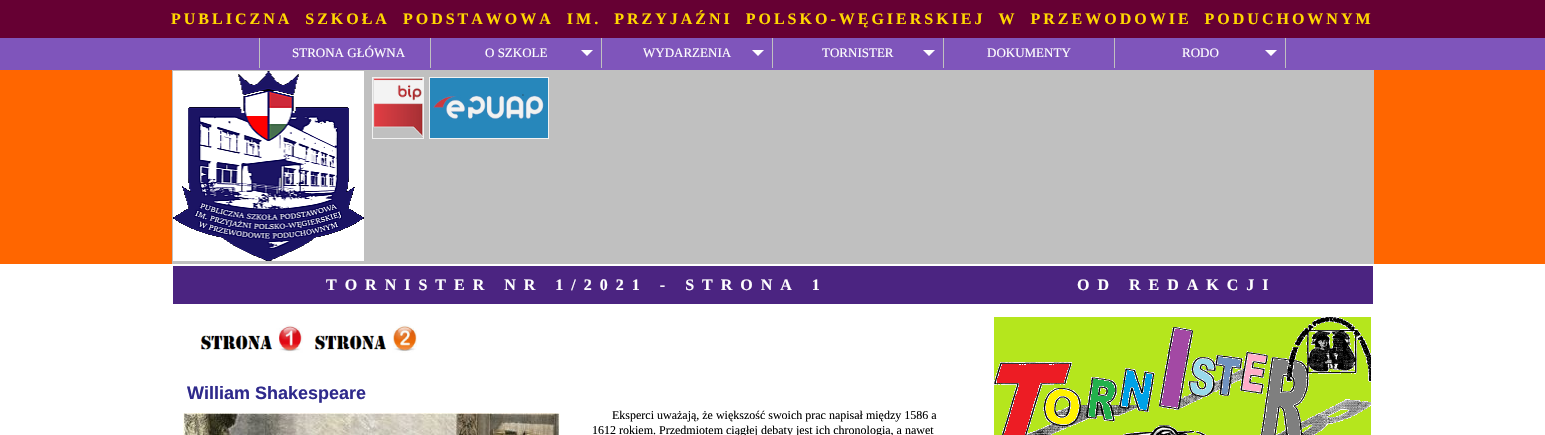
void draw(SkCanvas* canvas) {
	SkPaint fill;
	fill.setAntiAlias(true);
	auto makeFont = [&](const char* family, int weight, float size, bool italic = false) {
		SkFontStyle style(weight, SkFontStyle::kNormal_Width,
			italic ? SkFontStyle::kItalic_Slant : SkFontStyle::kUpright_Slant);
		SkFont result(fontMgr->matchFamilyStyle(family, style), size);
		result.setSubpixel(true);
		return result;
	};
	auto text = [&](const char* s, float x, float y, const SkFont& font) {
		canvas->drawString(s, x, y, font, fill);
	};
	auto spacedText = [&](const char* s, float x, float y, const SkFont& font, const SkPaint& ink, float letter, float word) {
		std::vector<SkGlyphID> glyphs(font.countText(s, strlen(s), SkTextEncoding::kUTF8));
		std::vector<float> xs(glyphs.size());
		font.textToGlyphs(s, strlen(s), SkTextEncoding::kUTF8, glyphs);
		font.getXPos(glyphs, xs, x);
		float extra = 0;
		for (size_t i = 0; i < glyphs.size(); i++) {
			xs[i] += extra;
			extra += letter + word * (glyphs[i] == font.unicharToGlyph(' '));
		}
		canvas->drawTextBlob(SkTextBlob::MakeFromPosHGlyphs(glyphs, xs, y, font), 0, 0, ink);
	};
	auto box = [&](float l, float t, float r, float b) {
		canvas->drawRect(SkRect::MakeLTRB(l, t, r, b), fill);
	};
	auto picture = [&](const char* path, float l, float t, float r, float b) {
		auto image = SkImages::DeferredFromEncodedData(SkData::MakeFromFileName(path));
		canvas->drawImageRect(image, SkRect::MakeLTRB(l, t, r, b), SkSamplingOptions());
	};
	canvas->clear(0xFFFFFFFF);
	fill.setColor(0xFF660033);
	box(0, 0, 1545, 38);
	fill.setColor(0xFF7F55BB);
	box(0, 38, 1545, 70);
	fill.setColor(0xFFC0C0C0);
	box(430, 38, 431, 68);
	box(259, 38, 260, 68);
	picture("image0.png", 581, 50, 593, 56);
	box(601, 38, 602, 68);
	picture("image0.png", 752, 50, 764, 56);
	box(772, 38, 773, 68);
	picture("image0.png", 923, 50, 935, 56);
	box(943, 38, 944, 68);
	box(1114, 38, 1115, 68);
	picture("image0.png", 1265, 50, 1277, 56);
	box(1285, 38, 1286, 68);
	fill.setColor(0xFFFF6600);
	box(0, 70, 1545, 264);
	fill.setColor(0xFFC0C0C0);
	box(172, 70, 1374, 264);
	picture("image1.png", 173, 71, 364, 261);
	fill.setStyle(SkPaint::kStroke_Style);
	fill.setStrokeWidth(1);
	fill.setColor(0xFFF2F2F2);
	canvas->drawRect(SkRect::MakeLTRB(372.5f, 77.5f, 423.5f, 138.5f), fill);
	picture("image2.png", 373, 78, 423, 137);
	canvas->drawRect(SkRect::MakeLTRB(429.5f, 77.5f, 548.5f, 138.5f), fill);
	picture("image3.png", 430, 78, 548, 138);
	picture("image4.png", 200, 325, 303, 353);
	picture("image5.png", 314, 325, 417, 353);
	picture("image6.png", 183, 413, 560, 435);
	fill.setStyle(SkPaint::kFill_Style);
	fill.setColor(0xFF4B2481);
	box(173, 266, 1373, 304);
	picture("image7.png", 994, 317, 1371, 435);
	auto font1 = makeFont("Liberation Serif", 700, 16);
	fill.setColor(0xFFFFD700);
	spacedText("PUBLICZNA SZKOŁA PODSTAWOWA IM. PRZYJAŹNI POLSKO-WĘGIERSKIEJ W PRZEWODOWIE PODUCHOWNYM", 171, 24, font1, fill, 3, 6);
	auto font2 = makeFont("Liberation Serif", 400, 13);
	fill.setColor(0xFFFFFFFF);
	text("STRONA GŁÓWNA", 292, 57, font2);
	text("O SZKOLE", 485, 57, font2);
	text("WYDARZENIA", 643, 57, font2);
	text("TORNISTER", 822, 57, font2);
	text("DOKUMENTY", 987, 57, font2);
	text("RODO", 1182, 57, font2);
	spacedText("TORNISTER NR 1/2021 - STRONA 1", 326, 290, font1, fill, 8, 0);
	auto font3 = makeFont("Liberation Sans", 700, 18);
	fill.setColor(0xFF2F2A8C);
	text("William Shakespeare", 187, 399, font3);
	auto font4 = makeFont("Liberation Serif", 400, 12);
	fill.setColor(0xFF000000);
	text("Eksperci uważają, że większość swoich prac napisał między 1586 a", 612, 419, font4);
	text("1612 rokiem. Przedmiotem ciągłej debaty jest ich chronologia, a nawet", 592, 434, font4);
	fill.setColor(0xFFFFFFFF);
	spacedText("OD REDAKCJI", 1077, 290, font1, fill, 8, 0);
}
